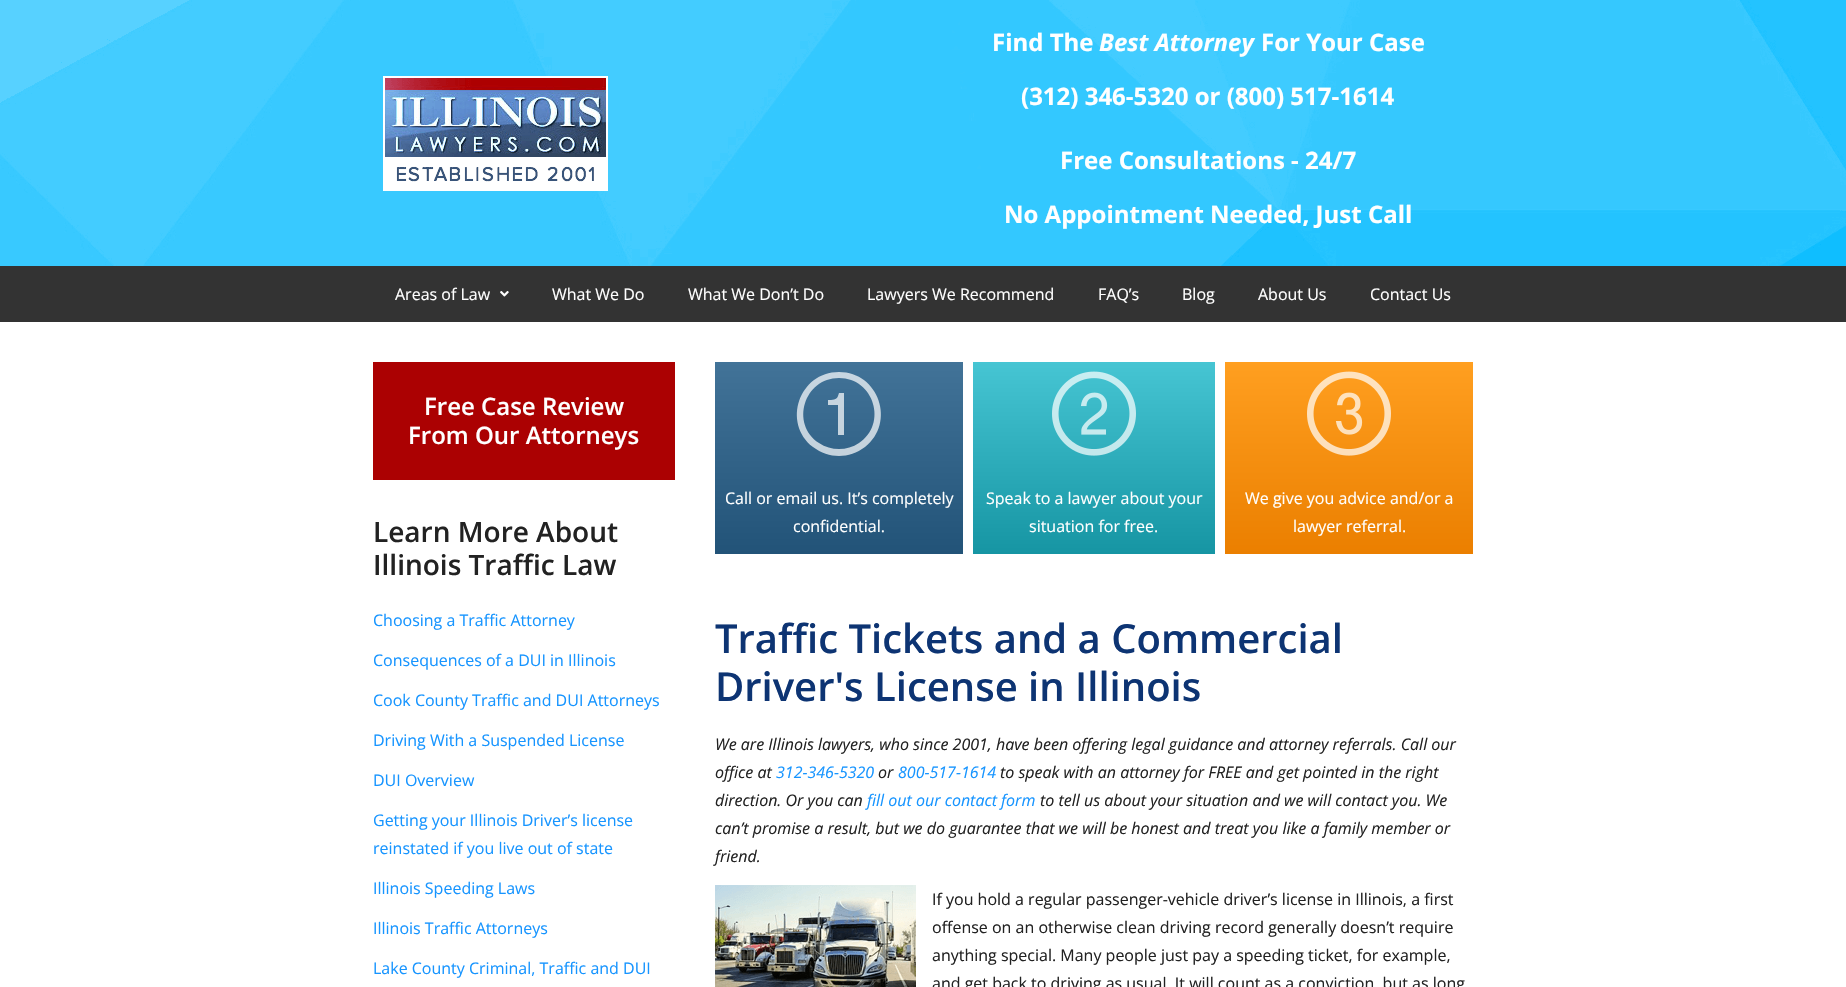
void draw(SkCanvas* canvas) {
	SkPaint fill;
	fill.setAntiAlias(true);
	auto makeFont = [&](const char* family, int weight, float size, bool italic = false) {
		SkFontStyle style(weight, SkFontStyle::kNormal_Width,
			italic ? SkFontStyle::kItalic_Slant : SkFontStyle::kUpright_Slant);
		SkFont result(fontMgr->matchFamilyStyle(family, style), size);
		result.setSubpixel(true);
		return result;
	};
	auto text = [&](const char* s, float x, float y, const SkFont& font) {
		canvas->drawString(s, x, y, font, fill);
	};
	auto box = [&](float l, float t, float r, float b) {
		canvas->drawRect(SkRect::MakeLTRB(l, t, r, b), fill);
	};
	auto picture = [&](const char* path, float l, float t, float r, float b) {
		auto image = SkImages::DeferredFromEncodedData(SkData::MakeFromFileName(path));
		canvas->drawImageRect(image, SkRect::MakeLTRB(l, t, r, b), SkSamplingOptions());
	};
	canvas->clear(0xFFFFFFFF);
	picture("image0.png", 0, 0, 1846, 266);
	picture("image1.png", 383, 76, 608, 191);
	fill.setColor(0xFF333333);
	box(0, 266, 1846, 322);
	picture("image2.png", 500, 291, 509, 297);
	fill.setColor(0xFFAB0102);
	box(373, 362, 675, 480);
	{
		const SkColor colors[] = {0xFF427398, 0xFF225378};
		const float stops[] = {0, 1};
		const SkPoint ends[] = {{839, 362}, {839, 554}};
		fill.setShader(SkGradientShader::MakeLinear(ends, colors, stops, 2, SkTileMode::kClamp));
		fill.setAlpha(255);
	}
	box(715, 362, 963, 554);
	fill.setShader(nullptr);
	fill.setColor(0xB5FFFFFF);
	canvas->drawPath(SkPathBuilder().moveTo(839, 372).cubicTo(799, 372, 782, 423, 813, 447).cubicTo(821, 453, 830, 456, 839, 456).cubicTo(848, 456, 857, 453, 865, 447).cubicTo(896, 423, 879, 372, 839, 372).close().moveTo(839, 449).cubicTo(832, 449, 825, 447, 819, 443).cubicTo(790, 424, 804, 378, 839, 378).cubicTo(874, 378, 888, 424, 859, 443).cubicTo(853, 447, 846, 449, 839, 449).close().moveTo(838, 396).cubicTo(837, 400, 832, 400, 828, 400).lineTo(828, 405).lineTo(838, 405).lineTo(838, 435).lineTo(844, 435).lineTo(844, 393).lineTo(839, 393).close().detach(), fill);
	{
		const SkColor colors[] = {0xFF46C5D3, 0xFF1695A3};
		const float stops[] = {0, 1};
		const SkPoint ends[] = {{1094, 362}, {1094, 554}};
		fill.setShader(SkGradientShader::MakeLinear(ends, colors, stops, 2, SkTileMode::kClamp));
		fill.setAlpha(255);
	}
	box(973, 362, 1215, 554);
	picture("image3.png", 1052, 371, 1136, 456);
	{
		const SkColor colors[] = {0xFFFF9F20, 0xFFEB7F00};
		const float stops[] = {0, 1};
		const SkPoint ends[] = {{1349, 362}, {1349, 554}};
		fill.setShader(SkGradientShader::MakeLinear(ends, colors, stops, 2, SkTileMode::kClamp));
		fill.setAlpha(255);
	}
	box(1225, 362, 1473, 554);
	picture("image4.png", 1307, 371, 1391, 456);
	picture("image5.png", 715, 885, 916, 987);
	auto font1 = makeFont("Open Sans", 700, 24);
	fill.setShader(nullptr);
	fill.setColor(0xFFFFFFFF);
	text("Find The", 992, 51, font1);
	auto font2 = makeFont("Open Sans", 700, 24, true);
	text("Best Attorney", 1099, 51, font2);
	text("For Your Case", 1261, 51, font1);
	text("(312) 346-5320 or (800) 517-1614", 1021, 105, font1);
	text("Free Consultations - 24/7", 1060, 169, font1);
	text("No Appointment Needed, Just Call", 1004, 223, font1);
	auto font3 = makeFont("Open Sans", 400, 16);
	text("Areas of Law", 395, 300, font3);
	text("What We Do", 552, 300, font3);
	text("What We Don’t Do", 688, 300, font3);
	text("Lawyers We Recommend", 867, 300, font3);
	text("FAQ’s", 1098, 300, font3);
	text("Blog", 1182, 300, font3);
	text("About Us", 1258, 300, font3);
	text("Contact Us", 1370, 300, font3);
	auto font4 = makeFont("Open Sans", 600, 24);
	text("Free Case Review", 424, 415, font4);
	text("From Our Attorneys", 408, 444, font4);
	auto font5 = makeFont("Open Sans", 600, 28);
	fill.setColor(0xFF222222);
	text("Learn More About", 373, 542, font5);
	text("Illinois Traffic Law", 373, 575, font5);
	fill.setColor(0xFF1795FF);
	text("Choosing a Traffic Attorney", 373, 626, font3);
	text("Consequences of a DUI in Illinois", 373, 666, font3);
	text("Cook County Traffic and DUI Attorneys", 373, 706, font3);
	text("Driving With a Suspended License", 373, 746, font3);
	text("DUI Overview", 373, 786, font3);
	text("Getting your Illinois Driver’s license", 373, 826, font3);
	text("reinstated if you live out of state", 373, 854, font3);
	text("Illinois Speeding Laws", 373, 894, font3);
	text("Illinois Traffic Attorneys", 373, 934, font3);
	text("Lake County Criminal, Traffic and DUI", 373, 974, font3);
	fill.setColor(0xFFFFFFFF);
	text("Call or email us. It’s completely", 725, 504, font3);
	text("confidential.", 793, 532, font3);
	text("Speak to a lawyer about your", 986, 504, font3);
	text("situation for free.", 1029, 532, font3);
	text("We give you advice and/or a", 1245, 504, font3);
	text("lawyer referral.", 1293, 532, font3);
	auto font6 = makeFont("Open Sans", 600, 40);
	fill.setColor(0xFF0D3473);
	text("Traffic Tickets and a Commercial", 715, 653, font6);
	text("Driver's License in Illinois", 715, 701, font6);
	auto font7 = makeFont("Open Sans", 400, 16, true);
	fill.setColor(0xFF222222);
	text("We are Illinois lawyers, who since 2001, have been offering legal guidance and attorney referrals. Call our", 715, 750, font7);
	text("office at", 715, 778, font7);
	fill.setColor(0xFF1795FF);
	text("312-346-5320", 776, 778, font7);
	fill.setColor(0xFF222222);
	text("or", 878, 778, font7);
	fill.setColor(0xFF1795FF);
	text("800-517-1614", 898, 778, font7);
	fill.setColor(0xFF222222);
	text("to speak with an attorney for FREE and get pointed in the right", 1000, 778, font7);
	text("direction. Or you can", 715, 806, font7);
	fill.setColor(0xFF1795FF);
	text("fill out our contact form", 867, 806, font7);
	fill.setColor(0xFF222222);
	text("to tell us about your situation and we will contact you. We", 1040, 806, font7);
	text("can’t promise a result, but we do guarantee that we will be honest and treat you like a family member or", 715, 834, font7);
	text("friend.", 715, 862, font7);
	text("If you hold a regular passenger-vehicle driver’s license in Illinois, a first", 932, 905, font3);
	text("offense on an otherwise clean driving record generally doesn’t require", 932, 933, font3);
	text("anything special. Many people just pay a speeding ticket, for example,", 932, 961, font3);
	text("and get back to driving as usual. It will count as a conviction, but as long", 932, 989, font3);
}
